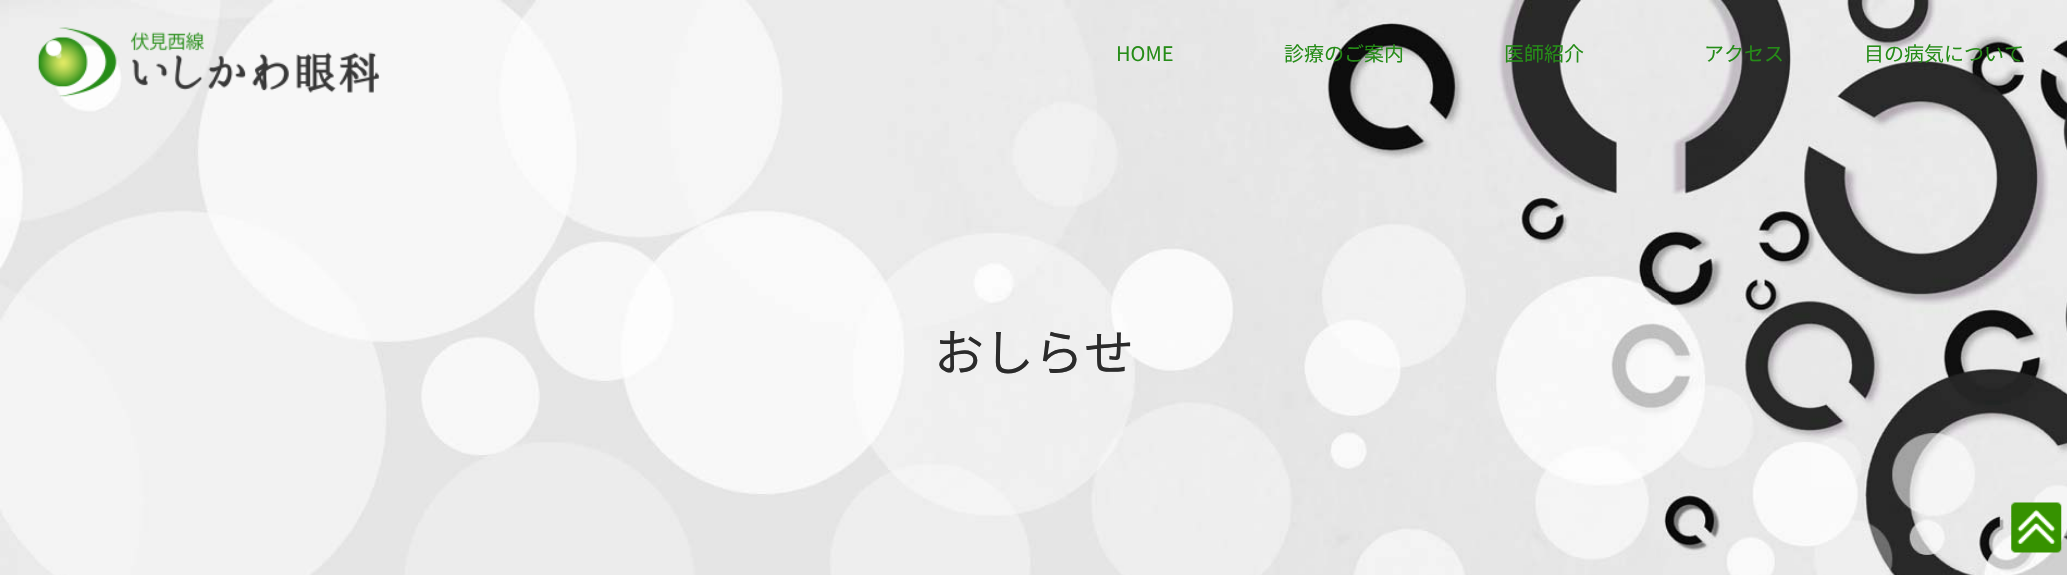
void draw(SkCanvas* canvas) {
	SkPaint fill;
	fill.setAntiAlias(true);
	auto makeFont = [&](const char* family, int weight, float size, bool italic = false) {
		SkFontStyle style(weight, SkFontStyle::kNormal_Width,
			italic ? SkFontStyle::kItalic_Slant : SkFontStyle::kUpright_Slant);
		SkFont result(fontMgr->matchFamilyStyle(family, style), size);
		result.setSubpixel(true);
		return result;
	};
	auto text = [&](const char* s, float x, float y, const SkFont& font) {
		canvas->drawString(s, x, y, font, fill);
	};
	auto picture = [&](const char* path, float l, float t, float r, float b) {
		auto image = SkImages::DeferredFromEncodedData(SkData::MakeFromFileName(path));
		canvas->drawImageRect(image, SkRect::MakeLTRB(l, t, r, b), SkSamplingOptions());
	};
	canvas->clear(0xFFFFFFFF);
	picture("image1.png", 0, 0, 2067, 575);
	picture("image0.png", 37, 27, 380, 97);
	picture("image2.png", 2011, 502, 2062, 553);
	auto font1 = makeFont("Noto Sans JP", 400, 20);
	fill.setColor(0xFF258C17);
	text("HOME", 1116, 61, font1);
	text("診療のご案内", 1284, 61, font1);
	text("医師紹介", 1504, 61, font1);
	text("アクセス", 1704, 61, font1);
	text("目の病気について", 1864, 61, font1);
	auto font2 = makeFont("Noto Sans JP", 400, 50);
	fill.setColor(0xFF2B2B2B);
	text("おしらせ", 934, 371, font2);
}
